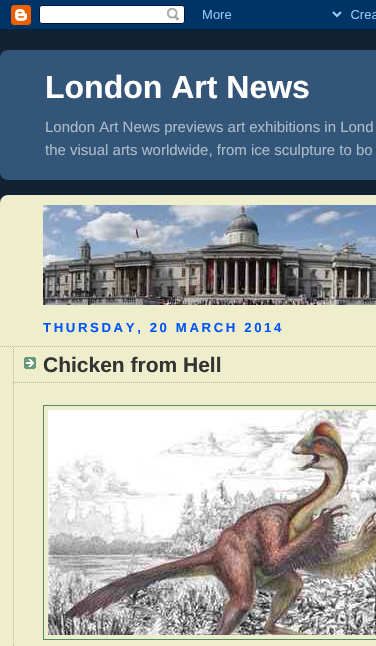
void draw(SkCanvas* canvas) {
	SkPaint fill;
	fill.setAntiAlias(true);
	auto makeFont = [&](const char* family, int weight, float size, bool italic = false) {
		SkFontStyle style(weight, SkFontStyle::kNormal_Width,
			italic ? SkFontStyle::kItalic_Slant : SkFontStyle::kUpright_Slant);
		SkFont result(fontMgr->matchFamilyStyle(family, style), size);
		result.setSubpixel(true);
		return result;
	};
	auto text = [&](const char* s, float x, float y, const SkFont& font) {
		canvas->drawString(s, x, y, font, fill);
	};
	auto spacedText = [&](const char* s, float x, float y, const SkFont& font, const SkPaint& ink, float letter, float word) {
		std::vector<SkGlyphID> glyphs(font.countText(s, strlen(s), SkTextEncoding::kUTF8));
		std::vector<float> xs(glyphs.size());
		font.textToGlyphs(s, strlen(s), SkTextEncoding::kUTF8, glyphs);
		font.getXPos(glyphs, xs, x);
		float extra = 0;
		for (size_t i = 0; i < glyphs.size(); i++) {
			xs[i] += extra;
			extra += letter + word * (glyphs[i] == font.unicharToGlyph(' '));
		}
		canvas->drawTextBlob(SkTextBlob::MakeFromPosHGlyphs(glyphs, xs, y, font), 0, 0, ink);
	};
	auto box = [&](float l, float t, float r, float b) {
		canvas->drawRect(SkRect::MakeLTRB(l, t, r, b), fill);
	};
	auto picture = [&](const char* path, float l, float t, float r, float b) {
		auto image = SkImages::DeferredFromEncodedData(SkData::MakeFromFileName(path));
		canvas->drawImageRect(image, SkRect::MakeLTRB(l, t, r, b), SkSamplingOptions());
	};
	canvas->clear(0xFF112233);
	picture("image0.png", 0, 0, 376, 30);
	fill.setColor(0xFF335577);
	box(0, 50, 376, 180);
	picture("image1.png", 0, 173, 7, 180);
	picture("image2.png", 0, 50, 7, 57);
	fill.setColor(0xFFEEEECC);
	box(0, 195, 376, 646);
	picture("image3.png", 0, 195, 8, 203);
	picture("image4.png", 43, 205, 376, 305);
	fill.setStyle(SkPaint::kStroke_Style);
	fill.setStrokeWidth(1);
	fill.setColor(0xFFBBBB99);
	fill.setPathEffect(SkDashPathEffect::Make({{1, 1}}, 0));
	canvas->drawPath(SkPathBuilder().moveTo(0, 346.5f).lineTo(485, 346.5f).detach(), fill);
	fill.setPathEffect(nullptr);
	picture("image5.png", 24, 357, 36, 369);
	fill.setPathEffect(SkDashPathEffect::Make({{1, 1}}, 0));
	canvas->drawPath(SkPathBuilder().moveTo(13, 382.5f).lineTo(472, 382.5f).detach(), fill);
	fill.setPathEffect(nullptr);
	fill.setPathEffect(SkDashPathEffect::Make({{1, 1}}, 0));
	canvas->drawPath(SkPathBuilder().moveTo(13.5f, 347).lineTo(13.5f, 383).detach(), fill);
	fill.setPathEffect(nullptr);
	fill.setPathEffect(SkDashPathEffect::Make({{1, 1}}, 0));
	canvas->drawPath(SkPathBuilder().moveTo(13.5f, 383).lineTo(13.5f, 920).detach(), fill);
	fill.setPathEffect(nullptr);
	fill.setColor(0xFF558866);
	canvas->drawRect(SkRect::MakeLTRB(43.5f, 405.5f, 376.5f, 639.5f), fill);
	picture("image6.png", 48, 410, 376, 635);
	auto font1 = makeFont("Liberation Sans", 700, 32);
	fill.setStyle(SkPaint::kFill_Style);
	fill.setColor(0xFFFFFFFF);
	text("London Art News", 45, 98, font1);
	auto font2 = makeFont("Liberation Sans", 400, 15);
	fill.setColor(0xFFAABBCC);
	text("London Art News previews art exhibitions in Lond", 45, 132, font2);
	text("the visual arts worldwide, from ice sculpture to bo", 45, 155, font2);
	auto font3 = makeFont("Liberation Sans", 700, 13.2f);
	fill.setColor(0xFF0055FF);
	spacedText("THURSDAY, 20 MARCH 2014", 43, 332, font3, fill, 2.6f, 0);
	auto font4 = makeFont("Liberation Sans", 700, 21);
	fill.setColor(0xFF333333);
	text("Chicken from Hell", 43, 372, font4);
}
